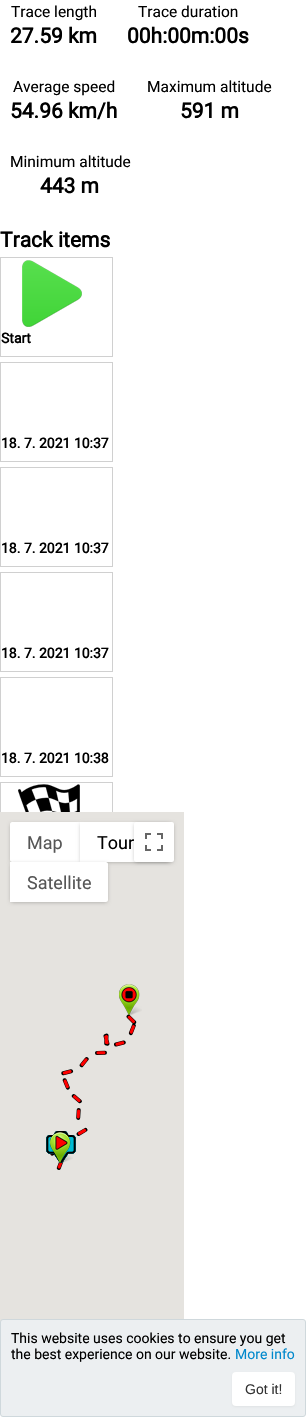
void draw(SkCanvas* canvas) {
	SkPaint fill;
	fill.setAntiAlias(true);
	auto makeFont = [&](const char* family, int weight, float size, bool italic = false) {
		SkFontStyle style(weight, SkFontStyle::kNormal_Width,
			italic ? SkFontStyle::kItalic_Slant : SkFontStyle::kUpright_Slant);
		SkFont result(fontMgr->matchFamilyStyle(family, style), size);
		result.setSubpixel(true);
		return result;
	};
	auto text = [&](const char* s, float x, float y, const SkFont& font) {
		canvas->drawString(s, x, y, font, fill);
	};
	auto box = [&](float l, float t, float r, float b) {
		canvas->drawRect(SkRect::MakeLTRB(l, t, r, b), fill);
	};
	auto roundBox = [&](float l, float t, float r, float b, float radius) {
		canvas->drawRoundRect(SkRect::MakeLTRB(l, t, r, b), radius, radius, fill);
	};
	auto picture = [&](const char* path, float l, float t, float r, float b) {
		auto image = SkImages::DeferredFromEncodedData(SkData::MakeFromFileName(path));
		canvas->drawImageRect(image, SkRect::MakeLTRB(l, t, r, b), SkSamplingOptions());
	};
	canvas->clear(0xFFFFFFFF);
	fill.setStyle(SkPaint::kStroke_Style);
	fill.setStrokeWidth(1);
	fill.setColor(0xFFD0D0D0);
	canvas->drawRect(SkRect::MakeLTRB(0.5f, 257.5f, 112.5f, 356.5f), fill);
	picture("image0.png", 22, 260, 82, 327);
	canvas->drawRect(SkRect::MakeLTRB(0.5f, 362.5f, 112.5f, 461.5f), fill);
	canvas->drawRect(SkRect::MakeLTRB(0.5f, 467.5f, 112.5f, 566.5f), fill);
	canvas->drawRect(SkRect::MakeLTRB(0.5f, 572.5f, 112.5f, 671.5f), fill);
	canvas->drawRect(SkRect::MakeLTRB(0.5f, 677.5f, 112.5f, 776.5f), fill);
	canvas->drawRect(SkRect::MakeLTRB(0.5f, 782.5f, 112.5f, 881.5f), fill);
	picture("image1.png", 18, 784, 80, 812);
	fill.setStyle(SkPaint::kFill_Style);
	fill.setColor(0xFFE5E3DF);
	box(0, 812, 184, 1322);
	fill.setColor(0x4D000000);
	fill.setMaskFilter(SkMaskFilter::MakeBlur(kNormal_SkBlurStyle, 2));
	canvas->drawRoundRect(SkRect::MakeLTRB(11, 824, 79, 862), 1, 1, fill);
	fill.setMaskFilter(nullptr);
	fill.setColor(0xFFFFFFFF);
	canvas->drawPath(SkPathBuilder().moveTo(12, 822).lineTo(80, 822).lineTo(80, 862).lineTo(12, 862).cubicTo(11, 862, 10, 861, 10, 860).lineTo(10, 824).cubicTo(10, 823, 11, 822, 12, 822).close().detach(), fill);
	fill.setColor(0x4D000000);
	fill.setMaskFilter(SkMaskFilter::MakeBlur(kNormal_SkBlurStyle, 2));
	canvas->drawRect(SkRect::MakeLTRB(81, 824, 169, 862), fill);
	fill.setMaskFilter(nullptr);
	fill.setColor(0xFFFFFFFF);
	box(80, 822, 136, 862);
	fill.setColor(0x4D000000);
	fill.setMaskFilter(SkMaskFilter::MakeBlur(kNormal_SkBlurStyle, 2));
	canvas->drawRoundRect(SkRect::MakeLTRB(11, 864, 107, 902), 1, 1, fill);
	fill.setMaskFilter(nullptr);
	fill.setColor(0xFFFFFFFF);
	canvas->drawPath(SkPathBuilder().moveTo(10, 862).lineTo(106, 862).cubicTo(107, 862, 108, 863, 108, 864).lineTo(108, 900).cubicTo(108, 901, 107, 902, 106, 902).lineTo(10, 902).close().detach(), fill);
	fill.setColor(0x4D000000);
	fill.setMaskFilter(SkMaskFilter::MakeBlur(kNormal_SkBlurStyle, 2));
	canvas->drawRoundRect(SkRect::MakeLTRB(135, 824, 173, 862), 1, 1, fill);
	fill.setMaskFilter(nullptr);
	fill.setColor(0xFFFFFFFF);
	roundBox(134, 822, 174, 862, 2);
	picture("image2.png", 145, 833, 163, 851);
	picture("image9.png", 126, 1014, 136, 1021);
	picture("image3.png", 119, 984, 142, 1016);
	picture("image10.png", 49, 1153, 54, 1156);
	picture("image11.png", 54, 1021, 137, 1170);
	picture("image4.png", 46, 1131, 76, 1163);
	picture("image5.png", 46, 1131, 76, 1163);
	picture("image6.png", 46, 1131, 76, 1163);
	picture("image7.png", 46, 1131, 76, 1163);
	picture("image8.png", 49, 1132, 73, 1164);
	fill.setColor(0xFFECEFF1);
	canvas->drawRoundRect(SkRect::MakeLTRB(0.5f, 1319.5f, 305.5f, 1416.5f), 2.5f, 2.5f, fill);
	fill.setStyle(SkPaint::kStroke_Style);
	fill.setColor(0xFFCFD8DC);
	canvas->drawRoundRect(SkRect::MakeLTRB(0.5f, 1319.5f, 305.5f, 1416.5f), 2.5f, 2.5f, fill);
	fill.setStyle(SkPaint::kFill_Style);
	fill.setColor(0x0D000000);
	fill.setMaskFilter(SkMaskFilter::MakeBlur(kNormal_SkBlurStyle, 1));
	canvas->drawRoundRect(SkRect::MakeLTRB(232, 1373, 295, 1407), 4, 4, fill);
	fill.setMaskFilter(nullptr);
	fill.setColor(0xFFFFFFFF);
	roundBox(232, 1372, 295, 1406, 4);
	auto font1 = makeFont("Roboto", 400, 15.5f);
	fill.setColor(0xFF000000);
	text("Trace length", 11, 17, font1);
	auto font2 = makeFont("Roboto", 700, 21);
	text("27.59 km", 10, 43, font2);
	text("Trace duration", 138, 17, font1);
	text("00h:00m:00s", 127, 43, font2);
	text("Average speed", 13, 92, font1);
	text("54.96 km/h", 10, 118, font2);
	text("Maximum altitude", 147, 92, font1);
	text("591 m", 180, 118, font2);
	text("Minimum altitude", 10, 167, font1);
	text("443 m", 40, 193, font2);
	text("Track items", 0, 247, font2);
	auto font3 = makeFont("Roboto", 700, 14);
	text("Start", 1, 343, font3);
	text("18. 7. 2021 10:37", 1, 448, font3);
	text("18. 7. 2021 10:37", 1, 553, font3);
	text("18. 7. 2021 10:37", 1, 658, font3);
	text("18. 7. 2021 10:38", 1, 763, font3);
	auto font4 = makeFont("Roboto", 400, 18);
	fill.setColor(0xFF565656);
	text("Map", 27, 849, font4);
	fill.setColor(0xFF000000);
	text("Tour", 97, 849, font4);
	fill.setColor(0xFF565656);
	text("Satellite", 27, 889, font4);
	auto font5 = makeFont("Roboto", 400, 14);
	fill.setColor(0xFF000000);
	text("This website uses cookies to ensure you get", 11, 1343, font5);
	text("the best experience on our website.", 11, 1359, font5);
	fill.setColor(0xFF0088CC);
	text("More info", 235, 1359, font5);
	auto font6 = makeFont("Liberation Sans", 400, 14);
	fill.setColor(0xFF333333);
	text("Got it!", 245, 1394, font6);
}
